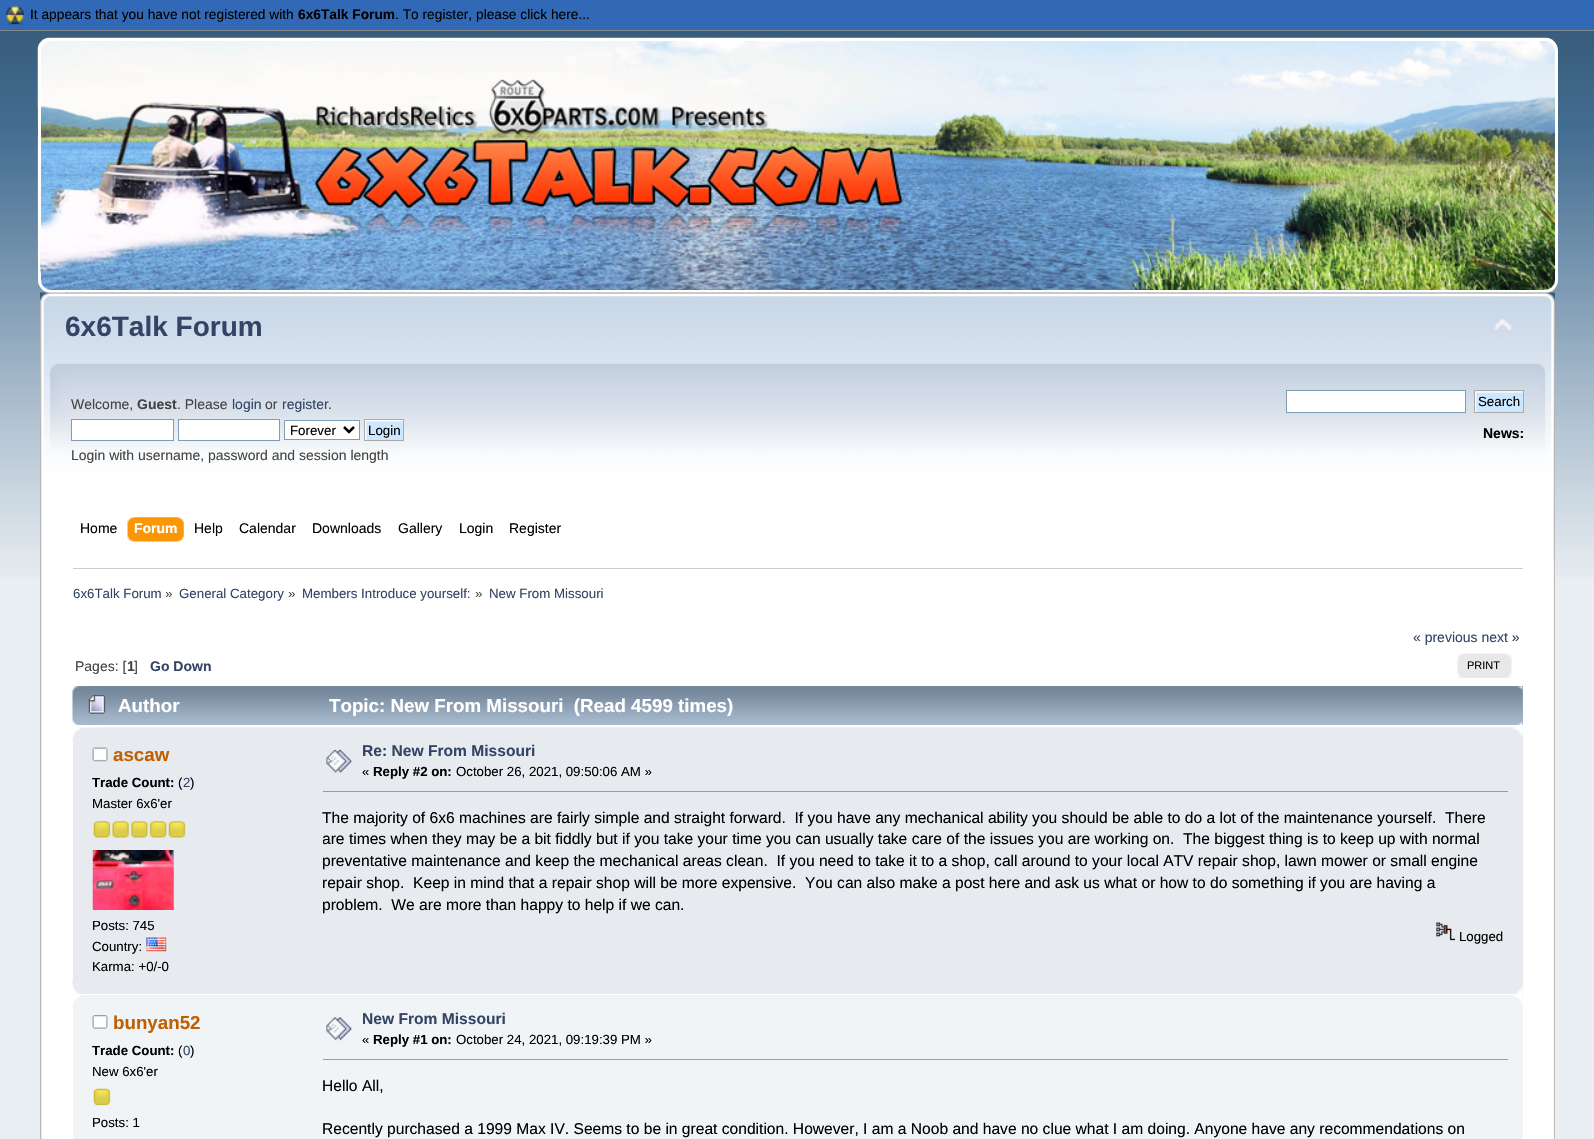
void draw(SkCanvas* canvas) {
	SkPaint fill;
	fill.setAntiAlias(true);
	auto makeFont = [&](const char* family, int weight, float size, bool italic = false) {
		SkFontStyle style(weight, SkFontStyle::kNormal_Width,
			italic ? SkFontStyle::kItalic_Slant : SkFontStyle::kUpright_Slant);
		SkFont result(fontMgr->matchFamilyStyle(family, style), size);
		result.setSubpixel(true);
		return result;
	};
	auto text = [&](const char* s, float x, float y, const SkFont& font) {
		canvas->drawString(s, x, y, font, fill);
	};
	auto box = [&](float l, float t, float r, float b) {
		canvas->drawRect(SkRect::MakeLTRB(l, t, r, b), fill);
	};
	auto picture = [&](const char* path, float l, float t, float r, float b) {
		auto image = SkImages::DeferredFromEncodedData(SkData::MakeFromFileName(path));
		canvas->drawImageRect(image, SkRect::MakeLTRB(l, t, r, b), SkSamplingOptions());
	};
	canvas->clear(0xFFE9EEF2);
	picture("image0.png", 0, 31, 1594, 577);
	fill.setColor(0xFFFFFFFF);
	box(42, 560, 1553, 1139);
	picture("image1.png", 40, 560, 42, 1139);
	picture("image2.png", 1553, 560, 1555, 1139);
	fill.setColor(0xFF3169B6);
	box(0, 0, 1594, 30);
	fill.setColor(0xFF868686);
	box(0, 30, 1594, 31);
	picture("image3.png", 6, 6, 24, 25);
	fill.setColor(0xFFE8E8E8);
	box(1458, 677, 1511, 678);
	picture("image4.png", 1457, 653, 1512, 678);
	picture("image5.png", 1468, 653, 1512, 678);
	fill.setColor(0xFF99ABBF);
	box(73, 686, 1523, 725);
	picture("image6.png", 72, 686, 1523, 725);
	picture("image7.png", 84, 686, 1523, 725);
	picture("image8.png", 88, 694, 106, 714);
	fill.setColor(0xFFE7EAEF);
	box(73, 728, 1523, 994);
	picture("image9.png", 72, 727, 1523, 741);
	picture("image10.png", 98, 727, 1523, 737);
	picture("image11.png", 92, 747, 108, 762);
	picture("image12.png", 93, 821, 111, 838);
	picture("image13.png", 112, 821, 129, 838);
	picture("image14.png", 131, 821, 148, 838);
	picture("image15.png", 149, 821, 167, 838);
	picture("image12.png", 168, 821, 186, 838);
	picture("image16.png", 92, 850, 174, 910);
	picture("image17.png", 146, 937, 167, 952);
	picture("image18.png", 326, 749, 352, 773);
	fill.setColor(0xFF9999AA);
	box(323, 791, 1508, 792);
	picture("image19.png", 1436, 922, 1455, 941);
	picture("image20.png", 72, 980, 79, 994);
	picture("image21.png", 1516, 985, 1523, 994);
	fill.setColor(0xFFF0F4F7);
	box(73, 995, 1523, 1139);
	picture("image22.png", 72, 995, 82, 1009);
	picture("image23.png", 1513, 995, 1523, 1004);
	picture("image24.png", 92, 1015, 108, 1029);
	picture("image25.png", 93, 1088, 111, 1106);
	picture("image26.png", 326, 1017, 352, 1041);
	fill.setColor(0xFF9999AA);
	box(323, 1059, 1508, 1060);
	fill.setColor(0xFFCCCCCC);
	box(73, 568, 1523, 569);
	picture("image34.png", 37, 37, 1558, 293);
	fill.setStyle(SkPaint::kStroke_Style);
	fill.setStrokeWidth(3);
	fill.setColor(0xFFFFFFFF);
	canvas->drawRoundRect(SkRect::MakeLTRB(39.5f, 39.5f, 1556.5f, 291.5f), 11.5f, 11.5f, fill);
	picture("image27.png", 40, 292, 1555, 560);
	picture("image28.png", 65, 292, 1555, 560);
	picture("image29.png", 1494, 318, 1512, 332);
	fill.setStyle(SkPaint::kFill_Style);
	canvas->drawRect(SkRect::MakeLTRB(71.5f, 419.5f, 173.5f, 440.5f), fill);
	fill.setStyle(SkPaint::kStroke_Style);
	fill.setStrokeWidth(1);
	fill.setColor(0xFF7F9DB9);
	canvas->drawRect(SkRect::MakeLTRB(71.5f, 419.5f, 173.5f, 440.5f), fill);
	fill.setStyle(SkPaint::kFill_Style);
	fill.setColor(0xFFFFFFFF);
	canvas->drawRect(SkRect::MakeLTRB(178.5f, 419.5f, 279.5f, 440.5f), fill);
	fill.setStyle(SkPaint::kStroke_Style);
	fill.setColor(0xFF7F9DB9);
	canvas->drawRect(SkRect::MakeLTRB(178.5f, 419.5f, 279.5f, 440.5f), fill);
	fill.setStyle(SkPaint::kFill_Style);
	fill.setColor(0xFFFFFFFF);
	canvas->drawRect(SkRect::MakeLTRB(284.5f, 420.5f, 359.5f, 439.5f), fill);
	fill.setStyle(SkPaint::kStroke_Style);
	fill.setColor(0xFF7F9DB9);
	canvas->drawRect(SkRect::MakeLTRB(284.5f, 420.5f, 359.5f, 439.5f), fill);
	fill.setStrokeWidth(2.5f);
	fill.setColor(0xFF000000);
	canvas->drawPath(SkPathBuilder().moveTo(344, 427).lineTo(349, 432).lineTo(354, 427).detach(), fill);
	picture("image30.png", 365, 420, 404, 442);
	fill.setStrokeWidth(1);
	fill.setColor(0xFFAAAAAA);
	canvas->drawRect(SkRect::MakeLTRB(364.5f, 419.5f, 403.5f, 440.5f), fill);
	fill.setStyle(SkPaint::kFill_Style);
	fill.setColor(0xFFFFFFFF);
	canvas->drawRect(SkRect::MakeLTRB(1286.5f, 390.5f, 1465.5f, 412.5f), fill);
	fill.setStyle(SkPaint::kStroke_Style);
	fill.setColor(0xFF7F9DB9);
	canvas->drawRect(SkRect::MakeLTRB(1286.5f, 390.5f, 1465.5f, 412.5f), fill);
	picture("image31.png", 1475, 391, 1523, 412);
	fill.setColor(0xFFAAAAAA);
	canvas->drawRect(SkRect::MakeLTRB(1474.5f, 390.5f, 1523.5f, 412.5f), fill);
	picture("image32.png", 133, 517, 184, 542);
	picture("image33.png", 127, 517, 178, 542);
	picture("image35.png", 40, 79, 903, 275);
	auto font1 = makeFont("Liberation Sans", 400, 13.75f);
	fill.setStyle(SkPaint::kFill_Style);
	fill.setColor(0xFF000000);
	text("It appears that you have not registered with", 30, 19, font1);
	auto font2 = makeFont("Liberation Sans", 700, 13.75f);
	text("6x6Talk Forum", 298, 19, font2);
	text(". To register, please click here...", 395, 19, font1);
	auto font3 = makeFont("Liberation Sans", 400, 14);
	fill.setColor(0xFF334466);
	text("« previous next »", 1413, 642, font3);
	fill.setColor(0xFF444444);
	text("Pages: [", 75, 671, font3);
	auto font4 = makeFont("Liberation Sans", 700, 14);
	text("1", 127, 671, font4);
	text("]", 134, 671, font3);
	fill.setColor(0xFF334466);
	text("Go Down", 150, 671, font4);
	auto font5 = makeFont("Liberation Sans", 400, 11);
	fill.setColor(0xFF000000);
	text("PRINT", 1467, 669, font5);
	auto font6 = makeFont("Liberation Sans", 700, 18.75f);
	fill.setColor(0xFFFFFFFF);
	text("Author", 118, 712, font6);
	text("Topic: New From Missouri  (Read 4599 times)", 329, 712, font6);
	fill.setColor(0xFFC06002);
	text("ascaw", 113, 761, font6);
	auto font7 = makeFont("Liberation Sans", 700, 13.25f);
	fill.setColor(0xFF000000);
	text("Trade Count:", 92, 787, font7);
	auto font8 = makeFont("Liberation Sans", 400, 13.25f);
	text("(", 178, 787, font8);
	fill.setColor(0xFF334466);
	text("2", 183, 787, font8);
	fill.setColor(0xFF000000);
	text(")", 190, 787, font8);
	text("Master 6x6'er", 92, 808, font8);
	text("Posts: 745", 92, 930, font8);
	text("Country:", 92, 951, font8);
	text("Karma: +0/-0", 92, 971, font8);
	auto font9 = makeFont("Liberation Sans", 700, 15.6f);
	fill.setColor(0xFF334466);
	text("Re: New From Missouri", 362, 756, font9);
	fill.setColor(0xFF000000);
	text("«", 362, 776, font8);
	text("Reply #2 on:", 373, 776, font7);
	text("October 26, 2021, 09:50:06 AM »", 456, 776, font8);
	auto font10 = makeFont("Liberation Sans", 400, 15.6f);
	text("The majority of 6x6 machines are fairly simple and straight forward.  If you have any mechanical ability you should be able to do a lot of the maintenance yourself.  There", 322, 823, font10);
	canvas->save();
	canvas->clipRect(SkRect::MakeLTRB(323, 789, 1523, 921));
	text("are times when they may be a bit fiddly but if you take your time you can usually take care of the issues you are working on.  The biggest thing is to keep up with normal", 322, 844, font10);
	canvas->restore();
	text("preventative maintenance and keep the mechanical areas clean.  If you need to take it to a shop, call around to your local ATV repair shop, lawn mower or small engine", 322, 866, font10);
	text("repair shop.  Keep in mind that a repair shop will be more expensive.  You can also make a post here and ask us what or how to do something if you are having a", 322, 888, font10);
	text("problem.  We are more than happy to help if we can.", 322, 910, font10);
	text("Logged", 1459, 941, font8);
	fill.setColor(0xFFC06002);
	text("bunyan52", 113, 1029, font6);
	fill.setColor(0xFF000000);
	text("Trade Count:", 92, 1055, font7);
	text("(", 178, 1055, font8);
	fill.setColor(0xFF334466);
	text("0", 183, 1055, font8);
	fill.setColor(0xFF000000);
	text(")", 190, 1055, font8);
	text("New 6x6'er", 92, 1076, font8);
	text("Posts: 1", 92, 1127, font8);
	fill.setColor(0xFF334466);
	text("New From Missouri", 362, 1024, font9);
	fill.setColor(0xFF000000);
	text("«", 362, 1044, font8);
	text("Reply #1 on:", 373, 1044, font7);
	text("October 24, 2021, 09:19:39 PM »", 456, 1044, font8);
	text("Hello All,", 322, 1091, font10);
	text("Recently purchased a 1999 Max IV. Seems to be in great condition. However, I am a Noob and have no clue what I am doing. Anyone have any recommendations on", 322, 1134, font10);
	auto font11 = makeFont("Liberation Sans", 400, 13.3f);
	fill.setColor(0xFF334466);
	text("6x6Talk Forum", 73, 598, font11);
	fill.setColor(0xFF444444);
	text("»", 165, 598, font11);
	fill.setColor(0xFF334466);
	text("General Category", 179, 598, font11);
	fill.setColor(0xFF444444);
	text("»", 288, 598, font11);
	fill.setColor(0xFF334466);
	text("Members Introduce yourself:", 302, 598, font11);
	fill.setColor(0xFF444444);
	text("»", 475, 598, font11);
	fill.setColor(0xFF334466);
	text("New From Missouri", 489, 598, font11);
	auto font12 = makeFont("Liberation Sans", 700, 28);
	text("6x6Talk Forum", 65, 336, font12);
	fill.setColor(0xFF444444);
	text("Welcome,", 71, 409, font3);
	text("Guest", 137, 409, font4);
	text(". Please", 177, 409, font3);
	fill.setColor(0xFF334466);
	text("login", 232, 409, font3);
	fill.setColor(0xFF444444);
	text("or", 265, 409, font3);
	fill.setColor(0xFF334466);
	text("register", 282, 409, font3);
	fill.setColor(0xFF444444);
	text(".", 328, 409, font3);
	fill.setColor(0xFF000000);
	text("Forever", 290, 435, font11);
	text("Login", 368, 435, font11);
	fill.setColor(0xFF444444);
	text("Login with username, password and session length", 71, 460, font3);
	fill.setColor(0xFF000000);
	text("Search", 1478, 406, font11);
	text("News:", 1483, 438, font4);
	text("Home", 80, 533, font3);
	fill.setColor(0xFFFFFFFF);
	text("Forum", 134, 533, font4);
	fill.setColor(0xFF000000);
	text("Help", 194, 533, font3);
	text("Calendar", 239, 533, font3);
	text("Downloads", 312, 533, font3);
	text("Gallery", 398, 533, font3);
	text("Login", 459, 533, font3);
	text("Register", 509, 533, font3);
}
